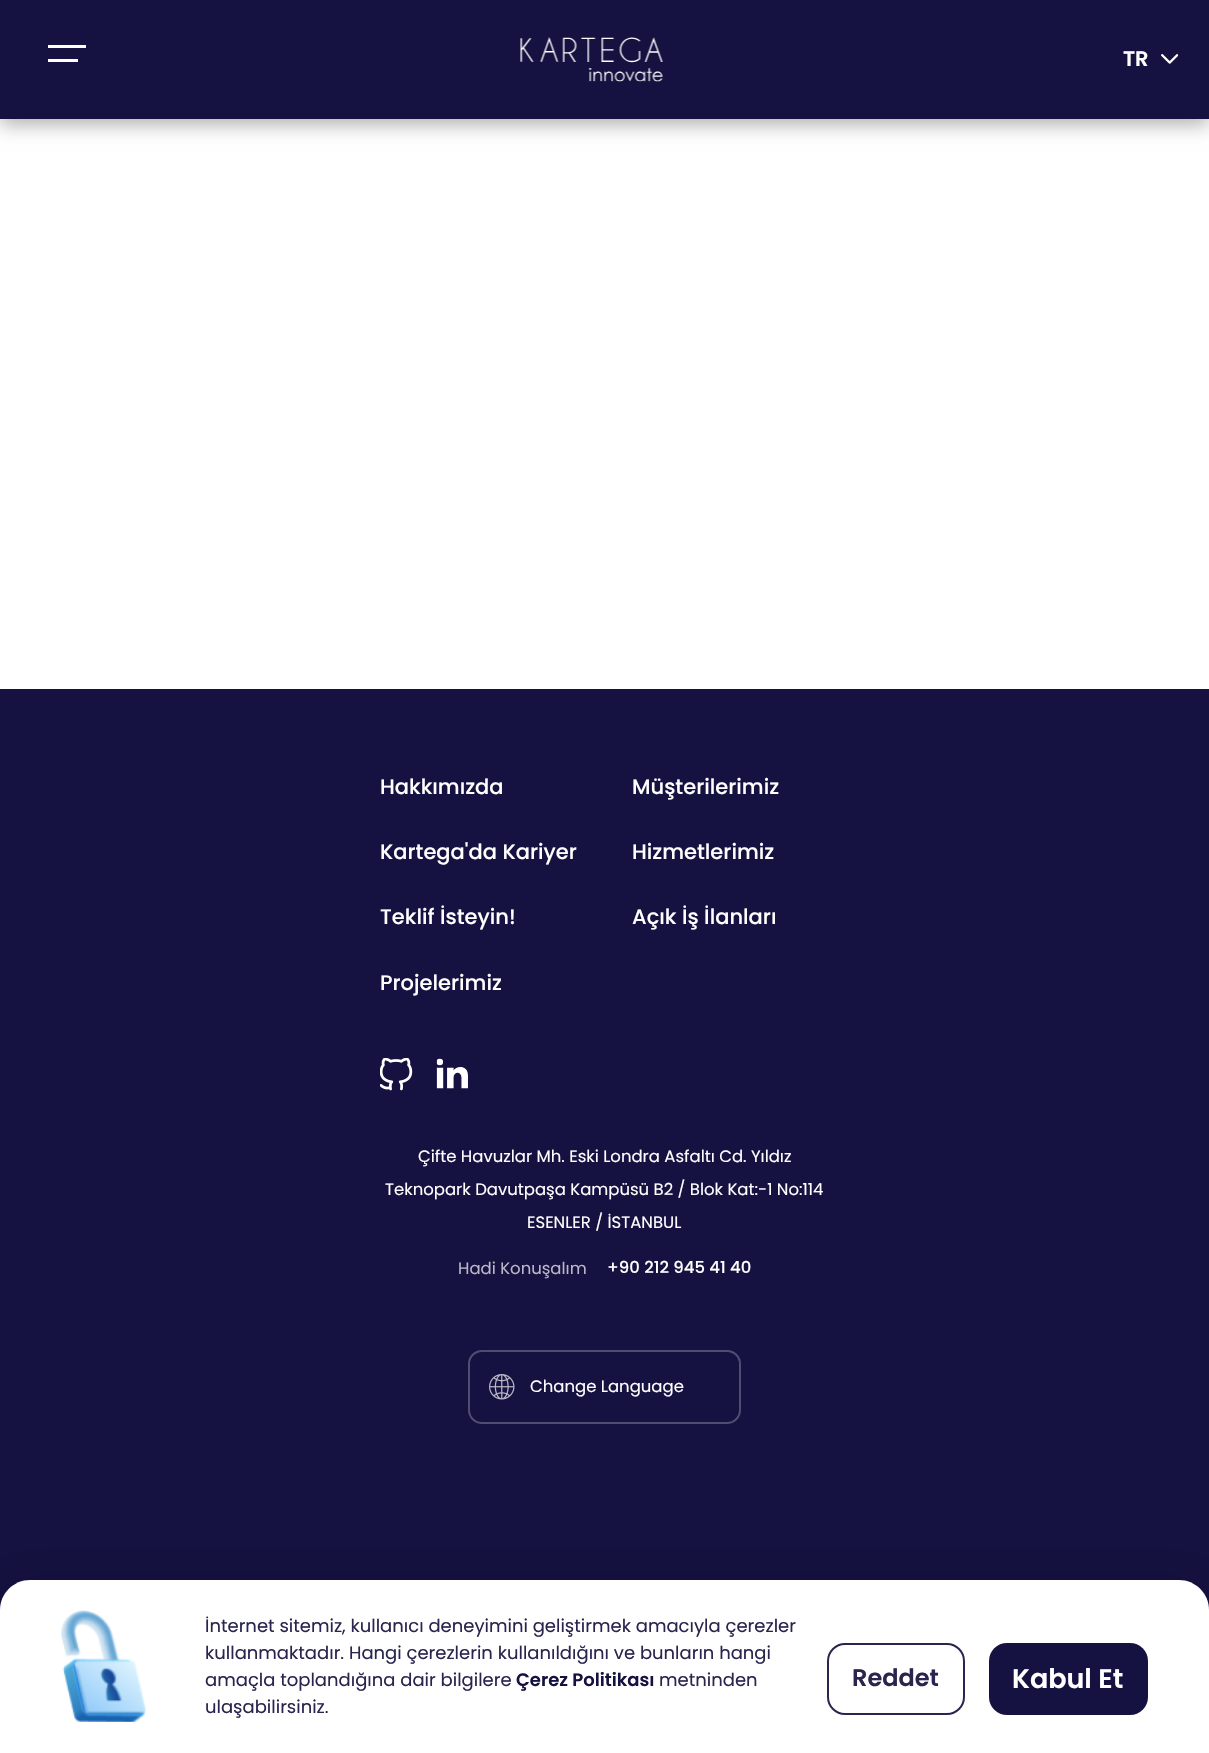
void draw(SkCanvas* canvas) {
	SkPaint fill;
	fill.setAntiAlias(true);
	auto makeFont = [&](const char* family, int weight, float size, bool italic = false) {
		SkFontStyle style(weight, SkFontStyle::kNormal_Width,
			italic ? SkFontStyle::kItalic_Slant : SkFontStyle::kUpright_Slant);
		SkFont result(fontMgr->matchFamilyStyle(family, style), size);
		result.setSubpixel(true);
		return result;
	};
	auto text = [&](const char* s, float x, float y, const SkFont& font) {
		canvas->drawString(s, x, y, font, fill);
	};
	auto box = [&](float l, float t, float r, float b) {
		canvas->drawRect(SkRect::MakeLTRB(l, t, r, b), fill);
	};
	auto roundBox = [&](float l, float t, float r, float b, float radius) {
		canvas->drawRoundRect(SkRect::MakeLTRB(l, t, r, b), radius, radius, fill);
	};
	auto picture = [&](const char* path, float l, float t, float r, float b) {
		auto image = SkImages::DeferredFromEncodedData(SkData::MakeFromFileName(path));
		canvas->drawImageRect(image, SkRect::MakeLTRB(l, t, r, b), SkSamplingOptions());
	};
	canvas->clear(0xFFFFFFFF);
	fill.setColor(0x4D000000);
	fill.setMaskFilter(SkMaskFilter::MakeBlur(kNormal_SkBlurStyle, 9));
	canvas->drawRect(SkRect::MakeLTRB(0, 6, 1209, 125), fill);
	fill.setMaskFilter(nullptr);
	fill.setColor(0xFF151140);
	box(0, 0, 1209, 119);
	fill.setColor(0xFFFFFFFF);
	box(48, 45, 86, 48);
	box(48, 59, 78, 62);
	picture("image0.png", 520, 37, 663, 82);
	picture("image1.png", 1161, 54, 1179, 64);
	fill.setColor(0xFF151140);
	box(0, 689, 1209, 1610);
	picture("image2.png", 380, 1058, 413, 1091);
	picture("image3.png", 436, 1058, 468, 1089);
	fill.setStyle(SkPaint::kStroke_Style);
	fill.setStrokeWidth(2);
	fill.setColor(0xFF504D70);
	canvas->drawRoundRect(SkRect::MakeLTRB(469, 1351, 740, 1423), 13, 13, fill);
	picture("image4.png", 489, 1374, 515, 1400);
	fill.setStyle(SkPaint::kFill_Style);
	fill.setColor(0x33000000);
	fill.setMaskFilter(SkMaskFilter::MakeBlur(kNormal_SkBlurStyle, 30));
	canvas->drawRoundRect(SkRect::MakeLTRB(0, 1602, 1209, 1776), 30, 30, fill);
	fill.setMaskFilter(nullptr);
	fill.setColor(0xFFFFFFFF);
	canvas->drawPath(SkPathBuilder().moveTo(30, 1580).lineTo(1179, 1580).cubicTo(1195.5f, 1580, 1209, 1593.5f, 1209, 1610).lineTo(1209, 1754).lineTo(0, 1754).lineTo(0, 1610).cubicTo(0, 1593.5f, 13.5f, 1580, 30, 1580).close().detach(), fill);
	picture("image5.png", 61, 1610, 146, 1722);
	fill.setStyle(SkPaint::kStroke_Style);
	fill.setColor(0xFF29254F);
	canvas->drawRoundRect(SkRect::MakeLTRB(828, 1644, 964, 1714), 17, 17, fill);
	fill.setStyle(SkPaint::kFill_Style);
	fill.setColor(0xFF151140);
	roundBox(989, 1643, 1148, 1715, 18);
	auto font1 = makeFont("Poppins", 600, 21);
	fill.setColor(0xFFFFFFFF);
	text("TR", 1123, 66, font1);
	auto font2 = makeFont("Poppins", 500, 21);
	text("Hakkımızda", 380, 794, font2);
	text("Müşterilerimiz", 632, 794, font2);
	text("Kartega'da Kariyer", 380, 859, font2);
	text("Hizmetlerimiz", 632, 859, font2);
	text("Teklif İsteyin!", 380, 924, font2);
	text("Açık İş İlanları", 632, 924, font2);
	text("Projelerimiz", 380, 990, font2);
	auto font3 = makeFont("Poppins", 400, 16.5f);
	text("Çifte Havuzlar Mh. Eski Londra Asfaltı Cd. Yıldız", 418, 1162, font3);
	text("Teknopark Davutpaşa Kampüsü B2 / Blok Kat:-1 No:114", 385, 1195, font3);
	text("ESENLER / İSTANBUL", 527, 1228, font3);
	fill.setColor(0xFFB9B8C6);
	text("Hadi Konuşalım", 458, 1274, font3);
	auto font4 = makeFont("Poppins", 500, 16.5f);
	fill.setColor(0xFFFFFFFF);
	text("+90 212 945 41 40", 607, 1273, font4);
	text("Change Language", 530, 1392, font3);
	auto font5 = makeFont("Poppins", 400, 18);
	fill.setColor(0xFF29254F);
	text("İnternet sitemiz, kullanıcı deneyimini geliştirmek amacıyla çerezler", 205, 1632, font5);
	text("kullanmaktadır. Hangi çerezlerin kullanıldığını ve bunların hangi", 205, 1659, font5);
	text("amaçla toplandığına dair bilgilere", 205, 1686, font5);
	auto font6 = makeFont("Poppins", 600, 18);
	fill.setColor(0xFF151140);
	text("Çerez Politikası", 516, 1686, font6);
	fill.setColor(0xFF29254F);
	text("metninden", 659, 1686, font5);
	text("ulaşabilirsiniz.", 205, 1713, font5);
	auto font7 = makeFont("Poppins", 600, 24);
	text("Reddet", 852, 1686, font7);
	auto font8 = makeFont("Poppins", 600, 27);
	fill.setColor(0xFFFFFFFF);
	text("Kabul Et", 1012, 1688, font8);
}
